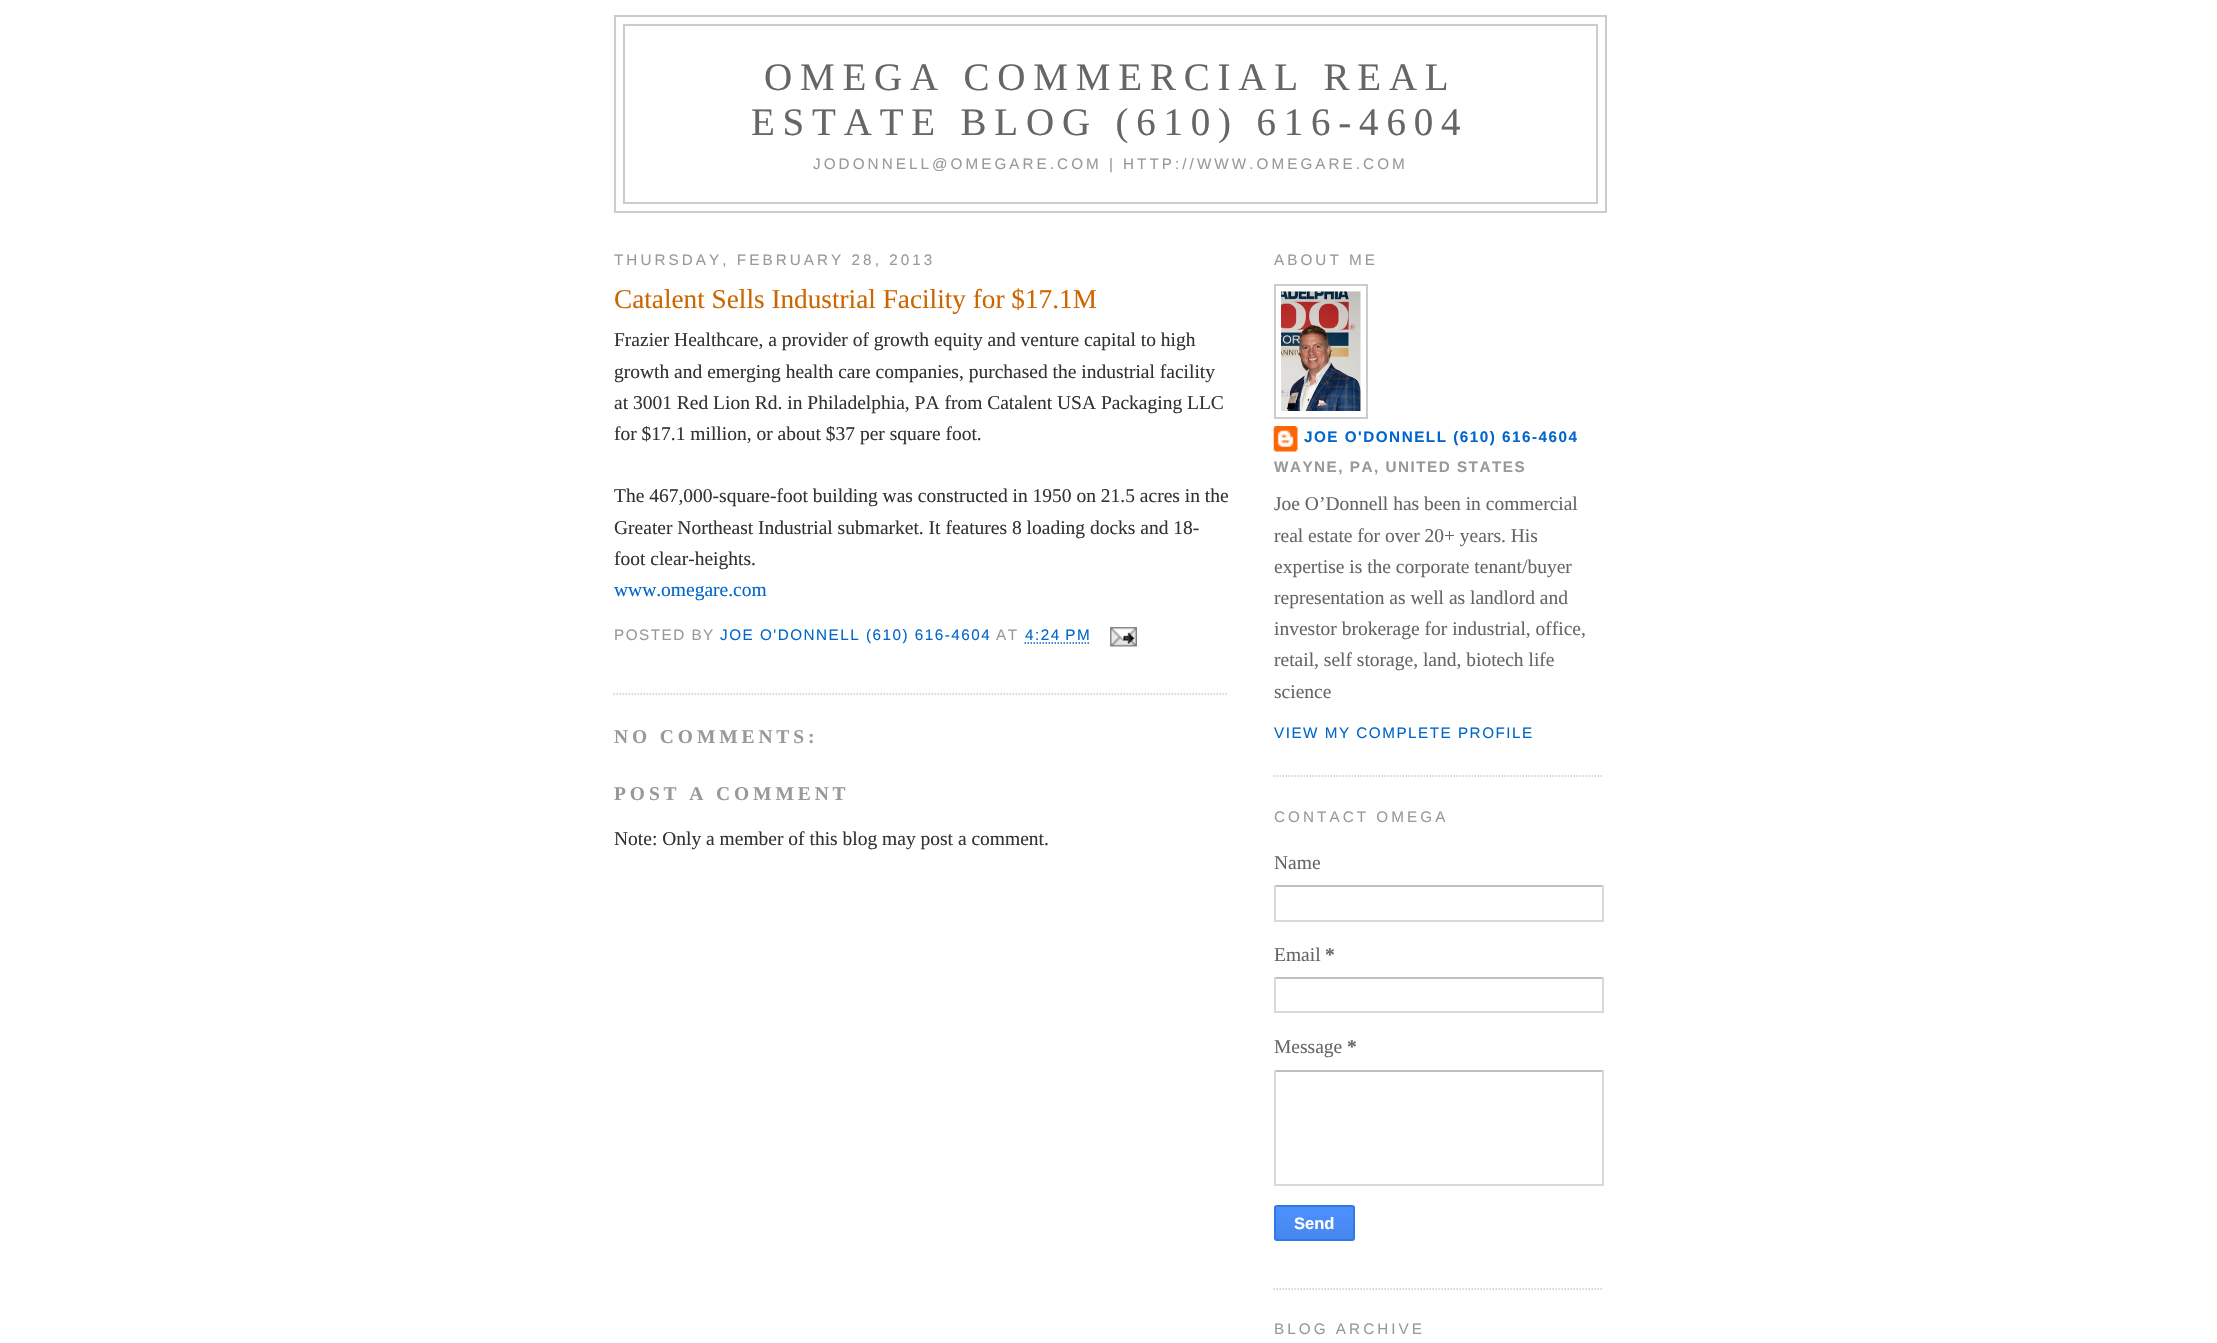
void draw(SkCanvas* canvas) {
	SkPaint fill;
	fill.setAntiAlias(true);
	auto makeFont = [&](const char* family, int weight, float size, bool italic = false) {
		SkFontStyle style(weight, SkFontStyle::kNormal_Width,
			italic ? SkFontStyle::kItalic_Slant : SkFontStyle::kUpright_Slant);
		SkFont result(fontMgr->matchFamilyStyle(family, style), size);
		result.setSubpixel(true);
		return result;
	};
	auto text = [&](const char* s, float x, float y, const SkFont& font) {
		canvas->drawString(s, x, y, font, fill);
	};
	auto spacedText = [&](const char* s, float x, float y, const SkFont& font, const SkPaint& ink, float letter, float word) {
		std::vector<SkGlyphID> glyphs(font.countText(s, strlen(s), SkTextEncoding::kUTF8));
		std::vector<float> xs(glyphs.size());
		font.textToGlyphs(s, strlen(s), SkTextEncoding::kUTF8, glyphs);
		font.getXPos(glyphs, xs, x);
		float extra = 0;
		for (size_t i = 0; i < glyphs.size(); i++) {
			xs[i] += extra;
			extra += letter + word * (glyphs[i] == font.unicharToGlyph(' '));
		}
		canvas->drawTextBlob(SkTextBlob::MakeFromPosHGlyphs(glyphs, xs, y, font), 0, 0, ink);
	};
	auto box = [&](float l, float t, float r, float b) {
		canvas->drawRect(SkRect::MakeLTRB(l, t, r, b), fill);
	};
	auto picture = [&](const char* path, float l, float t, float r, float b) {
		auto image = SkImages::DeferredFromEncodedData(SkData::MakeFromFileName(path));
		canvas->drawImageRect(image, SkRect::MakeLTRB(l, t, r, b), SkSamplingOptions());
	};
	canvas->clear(0xFFFFFFFF);
	fill.setStyle(SkPaint::kStroke_Style);
	fill.setStrokeWidth(2);
	fill.setColor(0xFFCCCCCC);
	canvas->drawRect(SkRect::MakeLTRB(615, 16, 1606, 212), fill);
	canvas->drawRect(SkRect::MakeLTRB(624, 25, 1597, 203), fill);
	fill.setStrokeWidth(1.5f);
	fill.setPathEffect(SkDashPathEffect::Make({{1.5f, 1.5f}}, 0));
	canvas->drawPath(SkPathBuilder().moveTo(613.5f, 694).lineTo(1228.5f, 694).detach(), fill);
	fill.setPathEffect(nullptr);
	fill.setColor(0xFF0066CC);
	fill.setPathEffect(SkDashPathEffect::Make({{1.5f, 1.5f}}, 0));
	canvas->drawPath(SkPathBuilder().moveTo(1024.5f, 643).lineTo(1090.5f, 643).detach(), fill);
	fill.setPathEffect(nullptr);
	picture("image0.png", 1110, 627, 1137, 647);
	fill.setColor(0xFFCCCCCC);
	fill.setPathEffect(SkDashPathEffect::Make({{1.5f, 1.5f}}, 0));
	canvas->drawPath(SkPathBuilder().moveTo(1273.5f, 776).lineTo(1603.5f, 776).detach(), fill);
	fill.setPathEffect(nullptr);
	fill.setStrokeWidth(2);
	canvas->drawRect(SkRect::MakeLTRB(1275, 285, 1367, 418), fill);
	picture("image1.png", 1281, 291, 1361, 411);
	picture("image2.png", 1273, 426, 1298, 452);
	fill.setStrokeWidth(1.5f);
	fill.setPathEffect(SkDashPathEffect::Make({{1.5f, 1.5f}}, 0));
	canvas->drawPath(SkPathBuilder().moveTo(1273.5f, 1289).lineTo(1603.5f, 1289).detach(), fill);
	fill.setPathEffect(nullptr);
	fill.setStyle(SkPaint::kFill_Style);
	fill.setColor(0xFFC0C0C0);
	box(1274, 885, 1604, 887);
	fill.setColor(0xFFD9D9D9);
	box(1602, 885, 1604, 921);
	box(1274, 920, 1604, 922);
	box(1274, 885, 1276, 921);
	fill.setColor(0xFFC0C0C0);
	box(1274, 977, 1604, 979);
	fill.setColor(0xFFD9D9D9);
	box(1602, 977, 1604, 1013);
	box(1274, 1011, 1604, 1013);
	box(1274, 977, 1276, 1013);
	fill.setColor(0xFFC0C0C0);
	box(1274, 1070, 1604, 1072);
	fill.setColor(0xFFD9D9D9);
	box(1602, 1070, 1604, 1185);
	box(1274, 1184, 1604, 1186);
	box(1274, 1070, 1276, 1185);
	canvas->save();
	canvas->clipPath(SkPathBuilder().moveTo(1277, 1205).lineTo(1352, 1205).cubicTo(1353.5f, 1205, 1355, 1206.5f, 1355, 1208).lineTo(1355, 1238).cubicTo(1355, 1239.5f, 1353.5f, 1241, 1352, 1241).lineTo(1277, 1241).cubicTo(1275.5f, 1241, 1274, 1239.5f, 1274, 1238).lineTo(1274, 1208).cubicTo(1274, 1206.5f, 1275.5f, 1205, 1277, 1205).close().detach(), true);
	{
		const SkColor colors[] = {0xFF4D90FE, 0xFF4787ED};
		const float stops[] = {0, 1};
		const SkPoint ends[] = {{1314, 1206}, {1314, 1239}};
		fill.setShader(SkGradientShader::MakeLinear(ends, colors, stops, 2, SkTileMode::kClamp));
		fill.setAlpha(255);
	}
	box(1274, 1206, 1355, 1239);
	canvas->restore();
	fill.setStyle(SkPaint::kStroke_Style);
	fill.setStrokeWidth(2);
	fill.setShader(nullptr);
	fill.setColor(0xFF3079ED);
	canvas->drawRoundRect(SkRect::MakeLTRB(1275, 1206, 1354, 1240), 2, 2, fill);
	auto font1 = makeFont("Liberation Serif", 400, 39);
	fill.setStyle(SkPaint::kFill_Style);
	fill.setColor(0xFF666666);
	spacedText("OMEGA COMMERCIAL REAL", 764, 90, font1, fill, 7.8f, 0);
	spacedText("ESTATE BLOG (610) 616-4604", 751, 135, font1, fill, 7.8f, 0);
	auto font2 = makeFont("Liberation Sans", 400, 15.25f);
	fill.setColor(0xFF999999);
	spacedText("JODONNELL@OMEGARE.COM |", 813, 169, font2, fill, 3.05f, 0);
	spacedText("HTTP://WWW.OMEGARE.COM", 1123, 169, font2, fill, 3.05f, 0);
	spacedText("THURSDAY, FEBRUARY 28, 2013", 614, 265, font2, fill, 3.05f, 0);
	auto font3 = makeFont("Liberation Serif", 400, 27.25f);
	fill.setColor(0xFFCC6600);
	text("Catalent Sells Industrial Facility for $17.1M", 614, 308, font3);
	auto font4 = makeFont("Liberation Serif", 400, 19.5f);
	fill.setColor(0xFF333333);
	text("Frazier Healthcare, a provider of growth equity and venture capital to high", 614, 346, font4);
	text("growth and emerging health care companies, purchased the industrial facility", 614, 378, font4);
	text("at 3001 Red Lion Rd. in Philadelphia, PA from Catalent USA Packaging LLC", 614, 409, font4);
	text("for $17.1 million, or about $37 per square foot.", 614, 440, font4);
	canvas->save();
	canvas->clipRect(SkRect::MakeLTRB(614, 228, 1229, 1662));
	text("The 467,000-square-foot building was constructed in 1950 on 21.5 acres in the", 614, 502, font4);
	canvas->restore();
	text("Greater Northeast Industrial submarket. It features 8 loading docks and 18-", 614, 534, font4);
	text("foot clear-heights.", 614, 565, font4);
	fill.setColor(0xFF0066CC);
	text("www.omegare.com", 614, 596, font4);
	fill.setColor(0xFF999999);
	spacedText("POSTED BY", 614, 640, font2, fill, 1.5f, 0);
	fill.setColor(0xFF0066CC);
	spacedText("JOE O'DONNELL (610) 616-4604", 720, 640, font2, fill, 1.5f, 0);
	fill.setColor(0xFF999999);
	spacedText("AT", 996, 640, font2, fill, 1.5f, 0);
	fill.setColor(0xFF0066CC);
	spacedText("4:24 PM", 1025, 640, font2, fill, 1.5f, 0);
	auto font5 = makeFont("Liberation Serif", 700, 19.5f);
	fill.setColor(0xFF999999);
	spacedText("NO COMMENTS:", 614, 743, font5, fill, 3.9f, 0);
	spacedText("POST A COMMENT", 614, 800, font5, fill, 3.9f, 0);
	fill.setColor(0xFF333333);
	text("Note: Only a member of this blog may post a comment.", 614, 845, font4);
	fill.setColor(0xFF999999);
	spacedText("ABOUT ME", 1274, 265, font2, fill, 3.05f, 0);
	auto font6 = makeFont("Liberation Sans", 700, 15.25f);
	fill.setColor(0xFF0066CC);
	spacedText("JOE O'DONNELL (610) 616-4604", 1304, 442, font6, fill, 1.5f, 0);
	fill.setColor(0xFF999999);
	spacedText("WAYNE, PA, UNITED STATES", 1274, 472, font6, fill, 1.5f, 0);
	fill.setColor(0xFF666666);
	text("Joe O’Donnell has been in commercial", 1274, 510, font4);
	text("real estate for over 20+ years. His", 1274, 542, font4);
	text("expertise is the corporate tenant/buyer", 1274, 573, font4);
	text("representation as well as landlord and", 1274, 604, font4);
	text("investor brokerage for industrial, office,", 1274, 635, font4);
	text("retail, self storage, land, biotech life", 1274, 666, font4);
	text("science", 1274, 698, font4);
	fill.setColor(0xFF0066CC);
	spacedText("VIEW MY COMPLETE PROFILE", 1274, 738, font2, fill, 1.5f, 0);
	fill.setColor(0xFF999999);
	spacedText("CONTACT OMEGA", 1274, 822, font2, fill, 3.05f, 0);
	fill.setColor(0xFF666666);
	text("Name", 1274, 869, font4);
	text("Email", 1274, 961, font4);
	text("*", 1325, 961, font5);
	text("Message", 1274, 1053, font4);
	text("*", 1347, 1053, font5);
	auto font7 = makeFont("Liberation Sans", 700, 16.5f);
	fill.setColor(0xFFFFFFFF);
	text("Send", 1294, 1229, font7);
	fill.setColor(0xFF999999);
	spacedText("BLOG ARCHIVE", 1274, 1334, font2, fill, 3.05f, 0);
}
